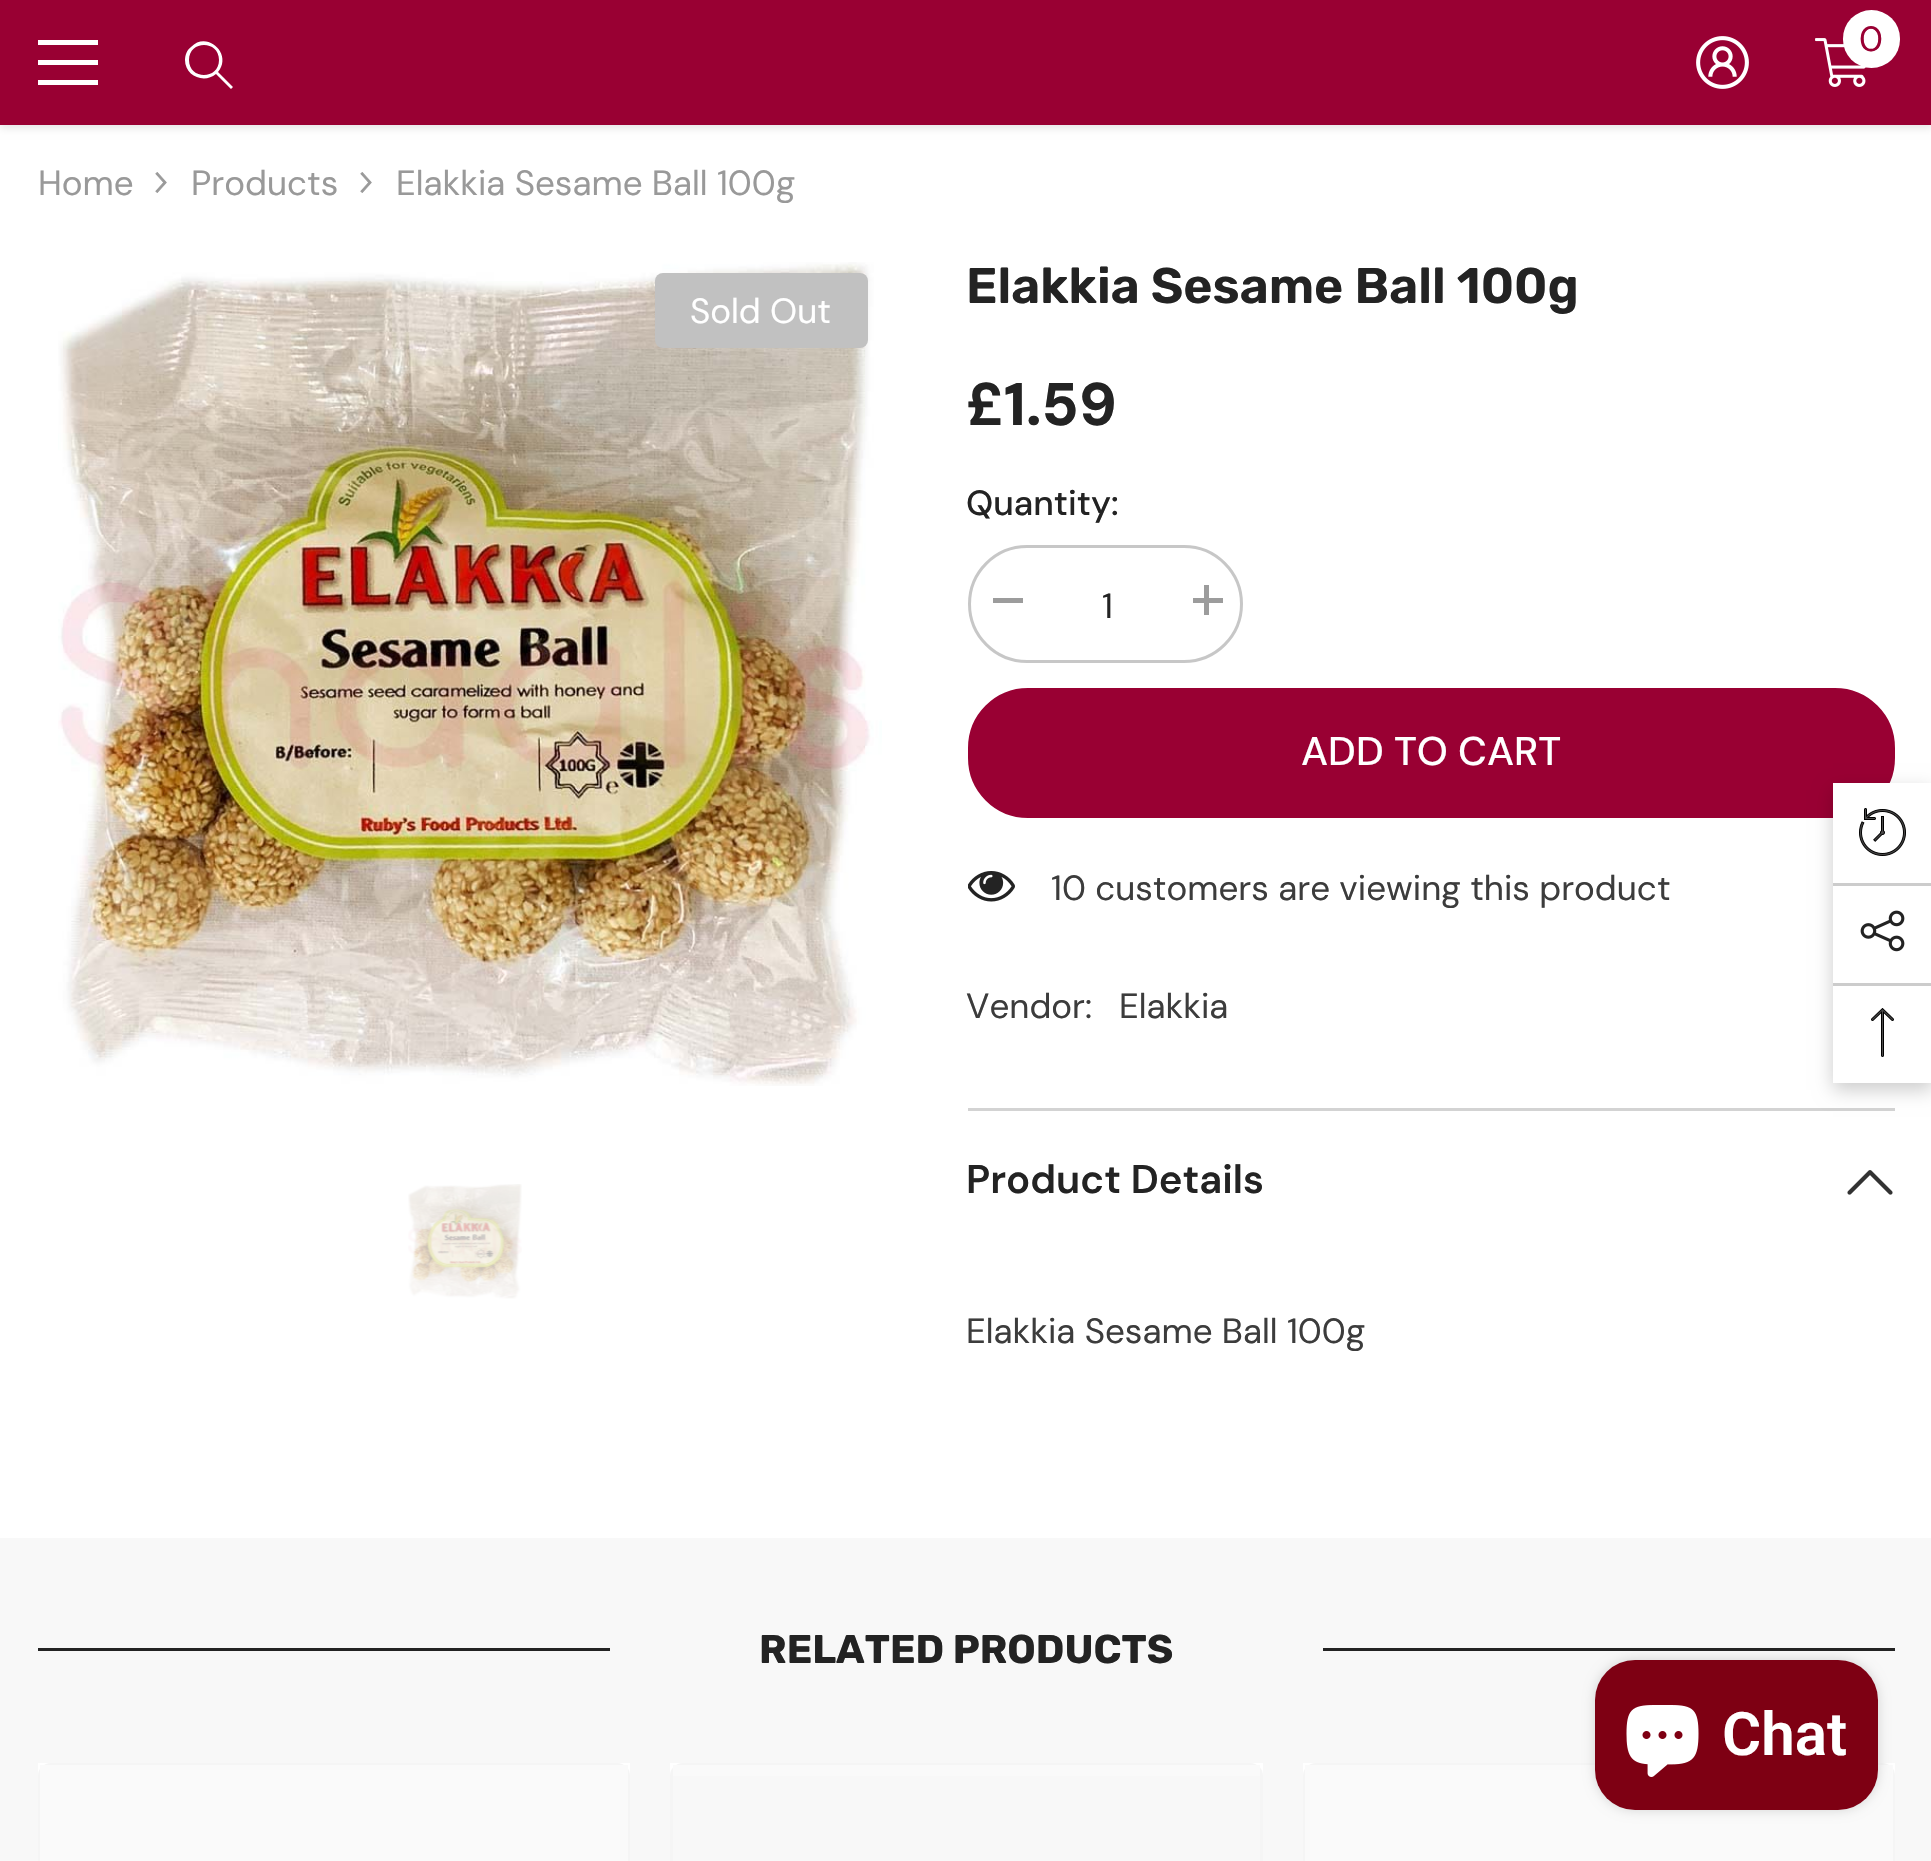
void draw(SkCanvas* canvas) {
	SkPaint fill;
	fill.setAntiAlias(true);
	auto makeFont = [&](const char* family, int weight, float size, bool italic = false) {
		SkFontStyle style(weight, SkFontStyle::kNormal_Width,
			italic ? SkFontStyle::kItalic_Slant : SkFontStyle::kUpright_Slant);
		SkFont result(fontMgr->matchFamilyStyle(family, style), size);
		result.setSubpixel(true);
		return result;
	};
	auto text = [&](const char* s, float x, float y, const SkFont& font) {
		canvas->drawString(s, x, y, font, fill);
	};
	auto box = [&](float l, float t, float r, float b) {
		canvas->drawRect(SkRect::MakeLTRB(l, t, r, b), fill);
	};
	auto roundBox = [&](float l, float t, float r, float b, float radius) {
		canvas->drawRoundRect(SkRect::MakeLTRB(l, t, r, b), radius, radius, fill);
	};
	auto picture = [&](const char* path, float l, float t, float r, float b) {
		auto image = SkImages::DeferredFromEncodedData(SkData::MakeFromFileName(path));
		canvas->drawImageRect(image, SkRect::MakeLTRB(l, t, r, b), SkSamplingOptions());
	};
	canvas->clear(0xFFFFFFFF);
	fill.setColor(0x1A000000);
	fill.setMaskFilter(SkMaskFilter::MakeBlur(kNormal_SkBlurStyle, 4));
	canvas->drawRect(SkRect::MakeLTRB(0, 3, 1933, 128), fill);
	fill.setMaskFilter(nullptr);
	fill.setColor(0xFF990033);
	box(0, 0, 1931, 125);
	fill.setColor(0xFFFFFFFF);
	box(38, 60, 98, 65);
	box(38, 40, 98, 45);
	box(38, 80, 98, 85);
	canvas->drawPath(SkPathBuilder().moveTo(185, 60).cubicTo(185, 76, 204, 84, 216, 74).lineTo(231, 89).lineTo(233, 87).lineTo(218, 72).cubicTo(233, 54, 207, 30, 191, 47).cubicTo(187, 50, 185, 55, 185, 60).close().moveTo(189, 60).cubicTo(189, 40, 219, 40, 219, 60).cubicTo(219, 80, 189, 80, 189, 60).close().detach(), fill);
	picture("image0.png", 1696, 36, 1749, 89);
	picture("image1.png", 1815, 38, 1866, 87);
	roundBox(1843, 10, 1900, 68, 28.5f);
	picture("image2.png", 155, 172, 167, 193);
	picture("image2.png", 360, 172, 372, 193);
	picture("image3.png", 58, 262, 882, 1086);
	fill.setColor(0xFFC1C1C1);
	roundBox(655, 273, 868, 348, 8);
	picture("image4.png", 408, 1184, 522, 1299);
	fill.setStyle(SkPaint::kStroke_Style);
	fill.setStrokeWidth(3);
	fill.setColor(0xFFC7C7C7);
	canvas->drawRoundRect(SkRect::MakeLTRB(969.5f, 546.5f, 1241.5f, 661.5f), 57.5f, 57.5f, fill);
	fill.setStyle(SkPaint::kFill_Style);
	fill.setColor(0xFF9C9C9C);
	box(993, 598, 1023, 603);
	box(1193, 598, 1223, 603);
	box(1204, 585, 1209, 615);
	fill.setColor(0xFF990033);
	canvas->drawRoundRect(SkRect::MakeLTRB(970.5f, 690.5f, 1892.5f, 815.5f), 57.5f, 57.5f, fill);
	fill.setStyle(SkPaint::kStroke_Style);
	fill.setStrokeWidth(5);
	canvas->drawRoundRect(SkRect::MakeLTRB(970.5f, 690.5f, 1892.5f, 815.5f), 57.5f, 57.5f, fill);
	picture("image5.png", 968, 871, 1015, 902);
	fill.setStyle(SkPaint::kFill_Style);
	fill.setColor(0xFFD3D3D3);
	box(968, 1108, 1895, 1111);
	picture("image6.png", 1847, 1170, 1893, 1195);
	fill.setColor(0xFFF8F8F8);
	box(0, 1538, 1931, 1861);
	fill.setColor(0xFF232323);
	box(38, 1648, 1895, 1651);
	fill.setColor(0xFFF8F8F8);
	box(610, 1648, 1323, 1651);
	fill.setColor(0xFFFFFFFF);
	box(38, 1763, 630, 1776);
	fill.setStyle(SkPaint::kStroke_Style);
	fill.setStrokeWidth(3);
	fill.setColor(0xFFF5F5F5);
	canvas->drawRoundRect(SkRect::MakeLTRB(39.5f, 1764.5f, 628.5f, 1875.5f), 11.5f, 11.5f, fill);
	fill.setStyle(SkPaint::kFill_Style);
	{
		const SkColor colors[] = {0xFFFAFAFA, 0xFFF1F2F3, 0xFFFAFAFA};
		const float stops[] = {0.04f, 0.25f, 0.36f};
		const SkPoint ends[] = {{-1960, 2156}, {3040, 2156}};
		fill.setShader(SkGradientShader::MakeLinear(ends, colors, stops, 3, SkTileMode::kClamp));
		fill.setAlpha(255);
	}
	box(40, 1765, 628, 1861);
	fill.setShader(nullptr);
	fill.setColor(0xFFFFFFFF);
	box(670, 1763, 1263, 1776);
	fill.setStyle(SkPaint::kStroke_Style);
	fill.setColor(0xFFF5F5F5);
	canvas->drawRoundRect(SkRect::MakeLTRB(671.5f, 1764.5f, 1261.5f, 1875.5f), 11.5f, 11.5f, fill);
	fill.setStyle(SkPaint::kFill_Style);
	{
		const SkColor colors[] = {0xFFFAFAFA, 0xFFF1F2F3, 0xFFFAFAFA};
		const float stops[] = {0.04f, 0.25f, 0.36f};
		const SkPoint ends[] = {{-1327, 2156}, {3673, 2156}};
		fill.setShader(SkGradientShader::MakeLinear(ends, colors, stops, 3, SkTileMode::kClamp));
		fill.setAlpha(255);
	}
	box(673, 1765, 1260, 1776);
	fill.setShader(nullptr);
	fill.setColor(0xFFFFFFFF);
	box(1303, 1763, 1895, 1776);
	fill.setStyle(SkPaint::kStroke_Style);
	fill.setColor(0xFFF5F5F5);
	canvas->drawRoundRect(SkRect::MakeLTRB(1304.5f, 1764.5f, 1893.5f, 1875.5f), 11.5f, 11.5f, fill);
	fill.setStyle(SkPaint::kFill_Style);
	{
		const SkColor colors[] = {0xFFFAFAFA, 0xFFF1F2F3, 0xFFFAFAFA};
		const float stops[] = {0.04f, 0.25f, 0.36f};
		const SkPoint ends[] = {{-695, 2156}, {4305, 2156}};
		fill.setShader(SkGradientShader::MakeLinear(ends, colors, stops, 3, SkTileMode::kClamp));
		fill.setAlpha(255);
	}
	box(1305, 1765, 1893, 1861);
	fill.setShader(nullptr);
	fill.setColor(0x33000000);
	fill.setMaskFilter(SkMaskFilter::MakeBlur(kNormal_SkBlurStyle, 9));
	canvas->drawRect(SkRect::MakeLTRB(1833, 790, 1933, 1090), fill);
	fill.setMaskFilter(nullptr);
	fill.setColor(0xFFFFFFFF);
	box(1833, 783, 1931, 1083);
	picture("image7.png", 1859, 808, 1906, 856);
	fill.setColor(0xFFCCCCCC);
	box(1833, 883, 1931, 886);
	picture("image8.png", 1860, 910, 1905, 952);
	box(1833, 983, 1931, 986);
	picture("image9.png", 1871, 1008, 1894, 1057);
	fill.setColor(0x26000000);
	fill.setMaskFilter(SkMaskFilter::MakeBlur(kNormal_SkBlurStyle, 6));
	canvas->drawRoundRect(SkRect::MakeLTRB(1595, 1660, 1878, 1810), 40, 40, fill);
	fill.setMaskFilter(nullptr);
	fill.setColor(0xFF7E0013);
	roundBox(1595, 1660, 1878, 1810, 40);
	picture("image10.png", 1626, 1705, 1699, 1777);
	auto font1 = makeFont("DM Sans", 400, 35);
	fill.setColor(0xFF990033);
	text("0", 1859, 51, font1);
	fill.setColor(0xFF999999);
	text("Home", 38, 195, font1);
	text("Products", 191, 195, font1);
	text("Elakkia Sesame Ball 100g", 396, 195, font1);
	fill.setColor(0xFFFFFFFF);
	text("Sold Out", 690, 323, font1);
	auto font2 = makeFont("Rubik", 600, 50);
	fill.setColor(0xFF232323);
	text("Elakkia Sesame Ball 100g", 966, 303, font2);
	auto font3 = makeFont("DM Sans", 800, 60);
	text("£1.59", 966, 425, font3);
	auto font4 = makeFont("DM Sans", 500, 35);
	text("Quantity:", 966, 515, font4);
	text("1", 1102, 618, font1);
	auto font5 = makeFont("DM Sans", 500, 40);
	fill.setColor(0xFFFFFFFF);
	text("ADD TO CART", 1301, 765, font5);
	fill.setColor(0xFF3C3C3C);
	text("10 customers are viewing this product", 1051, 900, font1);
	text("Vendor:", 966, 1018, font1);
	text("Elakkia", 1119, 1018, font1);
	auto font6 = makeFont("DM Sans", 600, 40);
	fill.setColor(0xFF232323);
	text("Product Details", 966, 1193, font6);
	fill.setColor(0xFF3C3C3C);
	text("Elakkia Sesame Ball 100g", 966, 1343, font1);
	auto font7 = makeFont("Rubik", 700, 40);
	fill.setColor(0xFF232323);
	text("RELATED PRODUCTS", 759, 1663, font7);
	auto font8 = makeFont("Roboto", 600, 60);
	fill.setColor(0xFFFFFFFF);
	text("Chat", 1722, 1755, font8);
}
